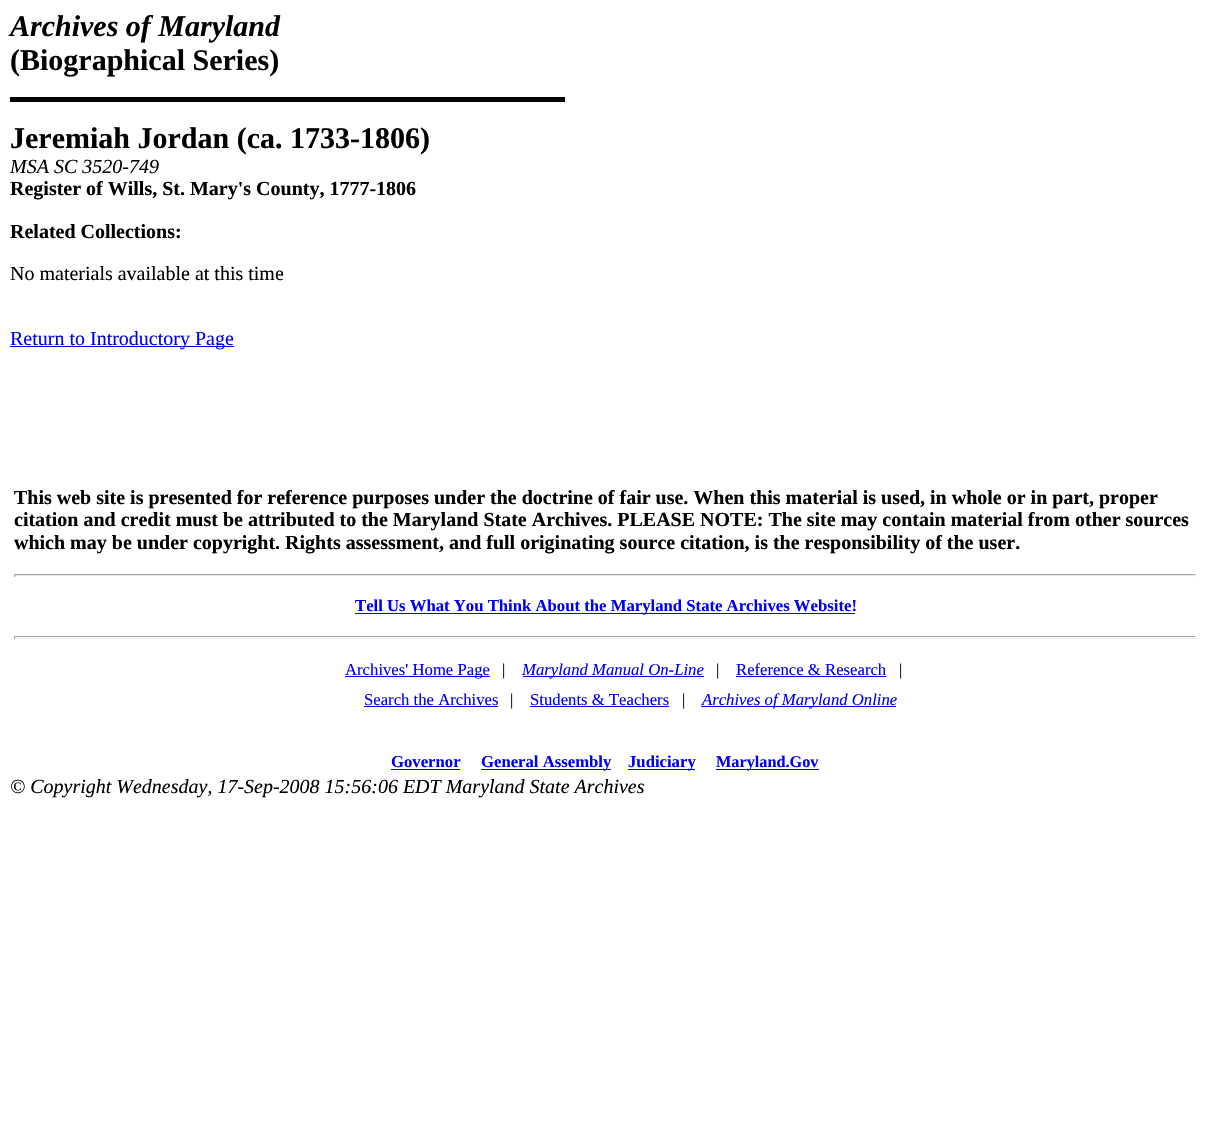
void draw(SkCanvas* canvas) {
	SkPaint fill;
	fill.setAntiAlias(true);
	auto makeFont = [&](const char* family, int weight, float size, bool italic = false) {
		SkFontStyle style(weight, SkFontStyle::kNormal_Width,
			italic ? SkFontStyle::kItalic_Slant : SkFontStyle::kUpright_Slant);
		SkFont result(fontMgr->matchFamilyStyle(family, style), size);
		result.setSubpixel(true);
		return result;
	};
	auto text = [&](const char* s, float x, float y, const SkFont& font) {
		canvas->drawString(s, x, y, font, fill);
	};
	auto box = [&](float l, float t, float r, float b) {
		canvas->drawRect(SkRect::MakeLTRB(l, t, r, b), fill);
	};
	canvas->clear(0xFFFFFFFF);
	fill.setColor(0xFF000000);
	box(10, 97, 565, 102);
	fill.setColor(0xFF0000EE);
	box(10, 346, 234, 347);
	fill.setColor(0xFF9F9F9F);
	box(14, 574, 1196, 575);
	fill.setColor(0xFFEEEEEE);
	box(1195, 574, 1196, 577);
	box(14, 575, 1196, 576);
	fill.setColor(0xFF9F9F9F);
	box(14, 574, 15, 577);
	fill.setColor(0xFF0000EE);
	box(355, 613, 855, 614);
	fill.setColor(0xFF9F9F9F);
	box(14, 636, 1196, 637);
	fill.setColor(0xFFEEEEEE);
	box(1195, 636, 1196, 639);
	box(14, 638, 1196, 639);
	fill.setColor(0xFF9F9F9F);
	box(14, 636, 15, 639);
	fill.setColor(0xFF0000EE);
	box(345, 676, 490, 677);
	box(523, 676, 704, 677);
	box(736, 676, 886, 677);
	box(364, 706, 498, 707);
	box(530, 706, 669, 707);
	box(701, 706, 896, 707);
	box(391, 769, 460, 770);
	box(481, 769, 611, 770);
	box(628, 769, 695, 770);
	box(716, 769, 819, 770);
	auto font1 = makeFont("Liberation Serif", 700, 30, true);
	fill.setColor(0xFF000000);
	text("Archives of Maryland", 10, 36, font1);
	auto font2 = makeFont("Liberation Serif", 700, 30);
	text("(Biographical Series)", 10, 70, font2);
	text("Jeremiah Jordan (ca. 1733-1806)", 10, 148, font2);
	auto font3 = makeFont("Liberation Serif", 400, 20, true);
	text("MSA SC 3520-749", 10, 173, font3);
	auto font4 = makeFont("Liberation Serif", 700, 20);
	text("Register of Wills, St. Mary's County, 1777-1806", 10, 195, font4);
	text("Related Collections:", 10, 238, font4);
	auto font5 = makeFont("Liberation Serif", 400, 20);
	text("No materials available at this time", 10, 280, font5);
	fill.setColor(0xFF0000EE);
	text("Return to Introductory Page", 10, 345, font5);
	fill.setColor(0xFF000000);
	text("This web site is presented for reference purposes under the doctrine of fair use. When this material is used, in whole or in part, proper", 14, 504, font4);
	text("citation and credit must be attributed to the Maryland State Archives. PLEASE NOTE: The site may contain material from other sources", 14, 526, font4);
	text("which may be under copyright. Rights assessment, and full originating source citation, is the responsibility of the user.", 14, 549, font4);
	auto font6 = makeFont("Liberation Serif", 700, 16.7f);
	fill.setColor(0xFF0000EE);
	text("Tell Us What You Think About the Maryland State Archives Website!", 355, 611, font6);
	auto font7 = makeFont("Liberation Serif", 400, 16.7f);
	text("Archives' Home Page", 345, 675, font7);
	fill.setColor(0xFF000000);
	text("|", 502, 675, font7);
	auto font8 = makeFont("Liberation Serif", 400, 16.7f, true);
	fill.setColor(0xFF0000EE);
	text("Maryland Manual On-Line", 522, 675, font8);
	fill.setColor(0xFF000000);
	text("|", 716, 675, font7);
	fill.setColor(0xFF0000EE);
	text("Reference & Research", 736, 675, font7);
	fill.setColor(0xFF000000);
	text("|", 899, 675, font7);
	fill.setColor(0xFF0000EE);
	text("Search the Archives", 364, 705, font7);
	fill.setColor(0xFF000000);
	text("|", 510, 705, font7);
	fill.setColor(0xFF0000EE);
	text("Students & Teachers", 530, 705, font7);
	fill.setColor(0xFF000000);
	text("|", 682, 705, font7);
	fill.setColor(0xFF0000EE);
	text("Archives of Maryland Online", 702, 705, font8);
	text("Governor", 391, 767, font6);
	text("General Assembly", 481, 767, font6);
	text("Judiciary", 628, 767, font6);
	auto font9 = makeFont("Liberation Serif", 700, 16.25f);
	text("Maryland.Gov", 716, 767, font9);
	fill.setColor(0xFF000000);
	text("© Copyright Wednesday, 17-Sep-2008 15:56:06 EDT Maryland State Archives", 10, 793, font3);
}
